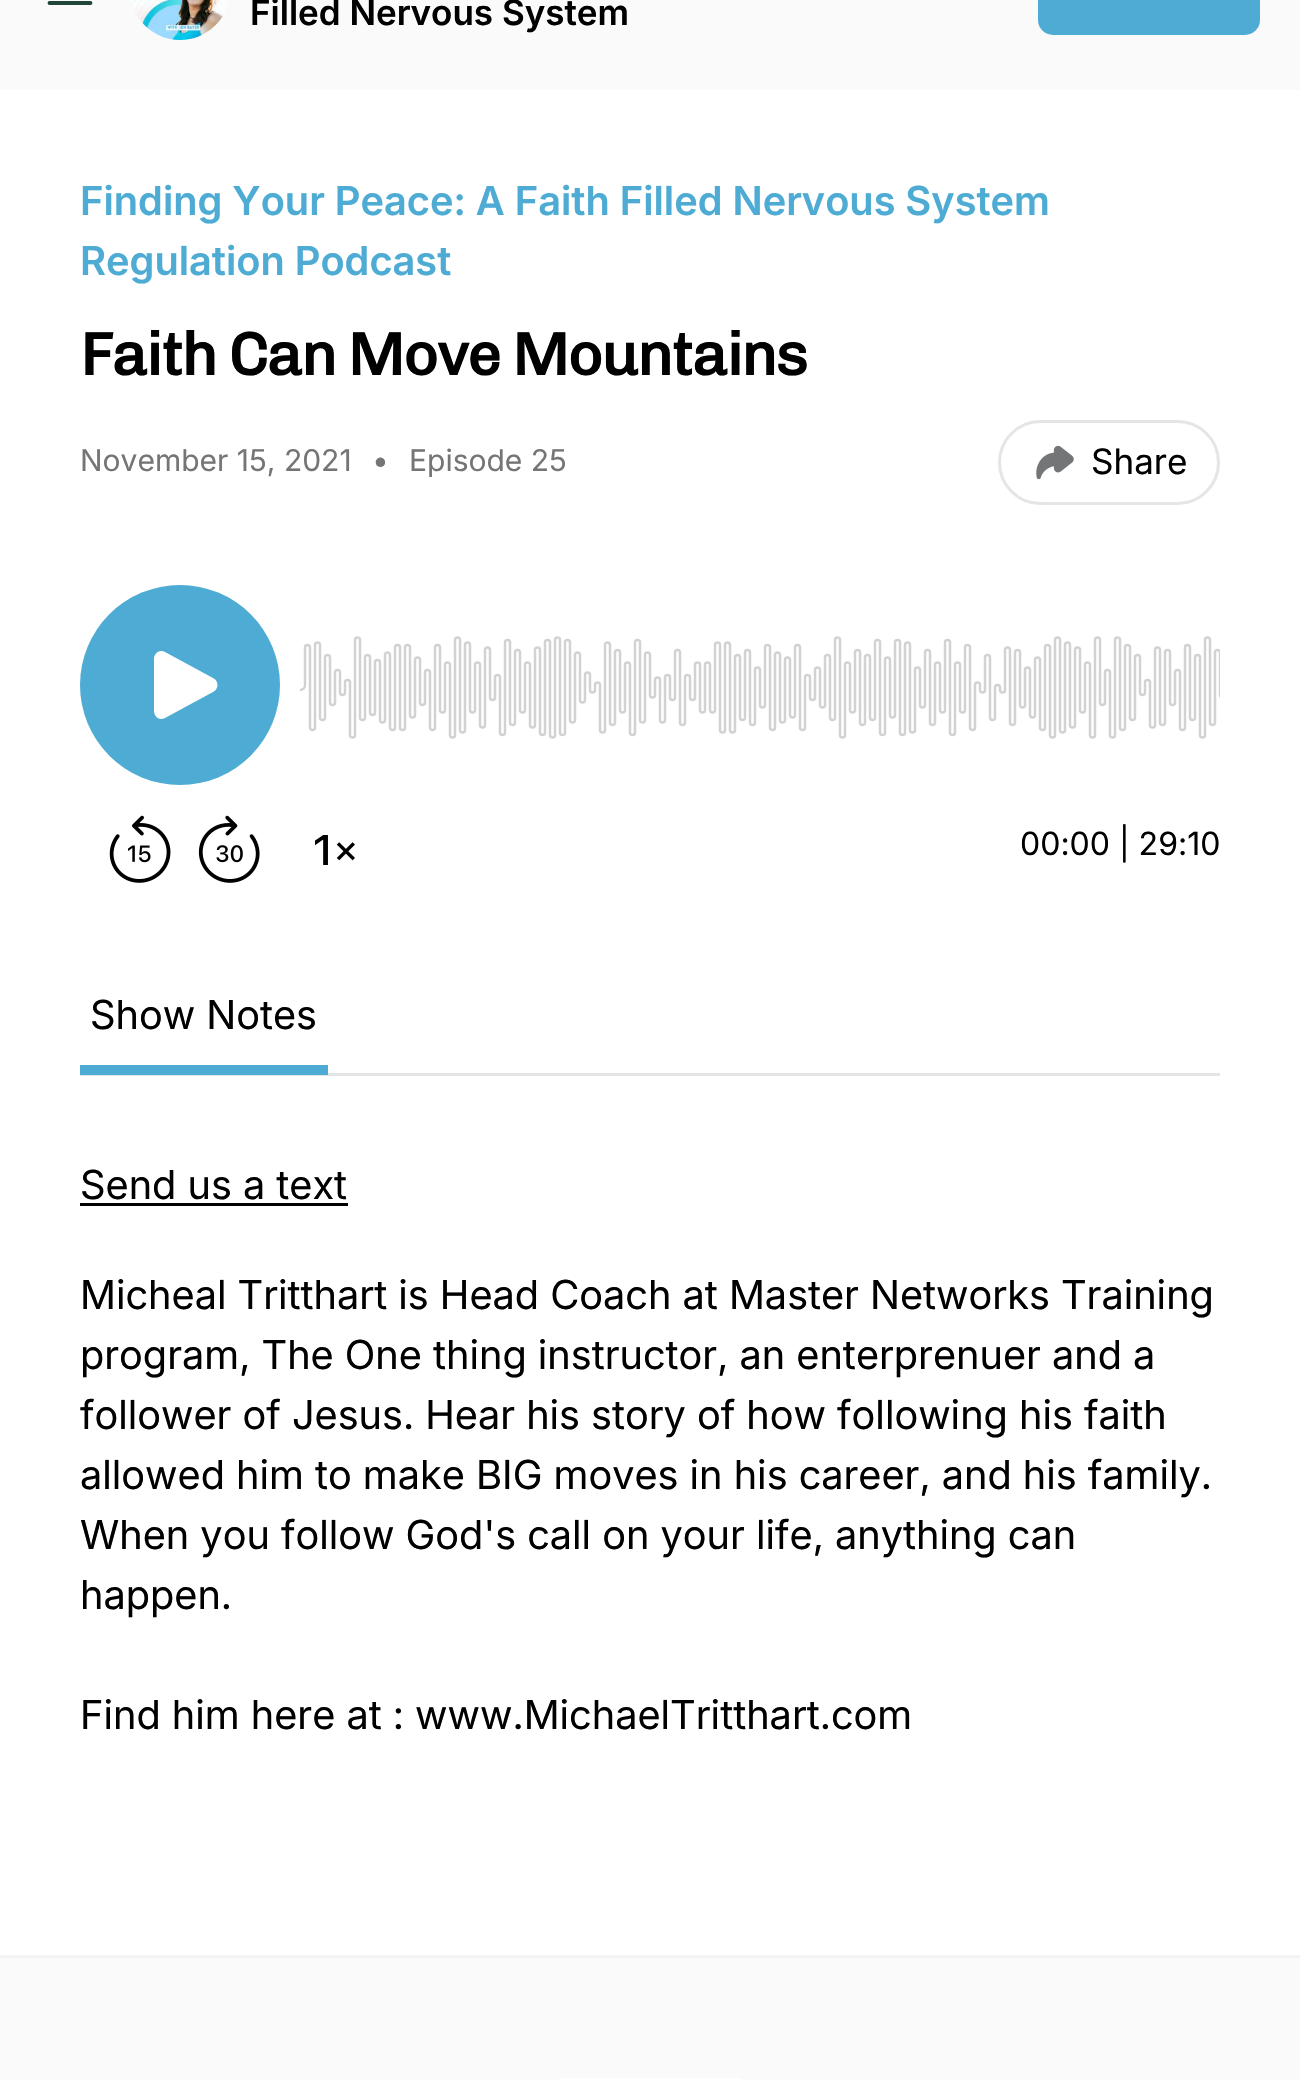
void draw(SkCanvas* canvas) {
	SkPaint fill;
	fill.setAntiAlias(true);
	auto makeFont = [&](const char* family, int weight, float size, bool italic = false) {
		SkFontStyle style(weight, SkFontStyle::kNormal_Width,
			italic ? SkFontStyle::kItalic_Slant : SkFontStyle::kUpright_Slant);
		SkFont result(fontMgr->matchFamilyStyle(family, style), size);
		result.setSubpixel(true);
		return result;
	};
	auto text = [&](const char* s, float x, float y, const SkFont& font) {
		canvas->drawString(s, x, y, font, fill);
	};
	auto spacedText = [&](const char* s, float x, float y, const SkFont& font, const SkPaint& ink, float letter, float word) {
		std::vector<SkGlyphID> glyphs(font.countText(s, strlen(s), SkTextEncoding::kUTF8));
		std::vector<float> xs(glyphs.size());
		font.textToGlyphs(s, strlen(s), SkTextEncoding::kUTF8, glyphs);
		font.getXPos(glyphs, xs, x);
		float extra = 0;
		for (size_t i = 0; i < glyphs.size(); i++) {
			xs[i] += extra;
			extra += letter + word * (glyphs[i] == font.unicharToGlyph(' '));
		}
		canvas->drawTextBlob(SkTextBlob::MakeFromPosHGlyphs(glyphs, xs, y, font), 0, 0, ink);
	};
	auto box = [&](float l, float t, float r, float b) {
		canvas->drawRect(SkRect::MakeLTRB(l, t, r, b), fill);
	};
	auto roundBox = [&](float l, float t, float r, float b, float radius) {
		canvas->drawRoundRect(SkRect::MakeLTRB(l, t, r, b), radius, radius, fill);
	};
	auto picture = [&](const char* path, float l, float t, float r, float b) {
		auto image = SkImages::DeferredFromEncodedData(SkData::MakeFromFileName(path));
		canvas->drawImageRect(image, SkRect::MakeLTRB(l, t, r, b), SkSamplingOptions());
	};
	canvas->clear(0xFFFFFFFF);
	fill.setColor(0xFFFAFAFA);
	box(0, 0, 1300, 90);
	fill.setStyle(SkPaint::kStroke_Style);
	fill.setStrokeWidth(3.8f);
	fill.setStrokeCap(SkPaint::kRound_Cap);
	fill.setStrokeJoin(SkPaint::kRound_Join);
	fill.setColor(0xFF214538);
	canvas->drawPath(SkPathBuilder().moveTo(49.5f, -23).lineTo(90.5f, -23).moveTo(49.5f, -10).lineTo(90.5f, -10).moveTo(49.5f, 3).lineTo(90.5f, 3).detach(), fill);
	picture("image0.png", 131, 0, 228, 40);
	fill.setStyle(SkPaint::kFill_Style);
	fill.setColor(0xFF4EACD4);
	roundBox(1038, -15, 1260, 35, 15);
	fill.setStyle(SkPaint::kStroke_Style);
	fill.setStrokeWidth(3);
	fill.setStrokeCap(SkPaint::kButt_Cap);
	fill.setStrokeJoin(SkPaint::kMiter_Join);
	fill.setColor(0xFFE4E5E6);
	canvas->drawRoundRect(SkRect::MakeLTRB(999.5f, 421.5f, 1218.5f, 503.5f), 41, 41, fill);
	picture("image1.png", 1036, 445, 1074, 480);
	picture("image2.png", 109, 815, 171, 883);
	picture("image3.png", 198, 815, 260, 883);
	picture("image4.png", 315, 835, 355, 865);
	fill.setStyle(SkPaint::kFill_Style);
	fill.setColor(0xFF4EACD4);
	canvas->drawCircle(180, 685, 100, fill);
	fill.setColor(0xFFFFFFFF);
	canvas->drawPath(SkPathBuilder(SkPathFillType::kEvenOdd).moveTo(154, 659).cubicTo(154, 653, 160, 649, 165, 652).lineTo(213, 678).cubicTo(219, 681, 219, 689, 213, 692).lineTo(165, 718).cubicTo(160, 721, 154, 717, 154, 711).close().detach(), fill);
	picture("image5.png", 300, 636, 1220, 739);
	fill.setColor(0xFFE4E5E6);
	box(80, 1073, 1220, 1076);
	fill.setColor(0xFF4EACD4);
	box(80, 1065, 328, 1075);
	fill.setColor(0xFF000000);
	box(80, 1203, 348, 1206);
	fill.setColor(0xFFFAFAFA);
	box(0, 1958, 1300, 2080);
	fill.setColor(0xFFF4F4F4);
	box(0, 1955, 1300, 1958);
	picture("image6.png", 558, 2078, 742, 2080);
	auto font1 = makeFont("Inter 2", 600, 35);
	fill.setColor(0xFF000000);
	text("Filled Nervous System", 250, 25, font1);
	auto font2 = makeFont("Inter", 600, 40);
	fill.setColor(0xFF4EACD4);
	text("Finding Your Peace: A Faith Filled Nervous System", 80, 215, font2);
	text("Regulation Podcast", 80, 275, font2);
	auto font3 = makeFont("Chivo", 700, 60);
	fill.setColor(0xFF000000);
	spacedText("Faith Can Move Mountains", 80, 375, font3, fill, -1.5f, 0);
	auto font4 = makeFont("Inter", 400, 30);
	fill.setColor(0xFF747576);
	text("November 15, 2021", 80, 471, font4);
	text("•", 372, 471, font4);
	text("Episode 25", 409, 471, font4);
	auto font5 = makeFont("Inter", 400, 35);
	fill.setColor(0xFF000000);
	text("Share", 1091, 474, font5);
	auto font6 = makeFont("Inter", 400, 32);
	text("00:00 | 29:10", 1020, 855, font6);
	auto font7 = makeFont("Inter 2", 400, 40);
	text("Show Notes", 90, 1029, font7);
	text("Send us a text", 80, 1199, font7);
	text("Micheal Tritthart is Head Coach at Master Networks Training", 80, 1309, font7);
	text("program, The One thing instructor, an enterprenuer and a", 80, 1369, font7);
	text("follower of Jesus. Hear his story of how following his faith", 80, 1429, font7);
	text("allowed him to make BIG moves in his career, and his family.", 80, 1489, font7);
	text("When you follow God's call on your life, anything can", 80, 1549, font7);
	text("happen.", 80, 1609, font7);
	text("Find him here at : www.MichaelTritthart.com", 80, 1729, font7);
}
